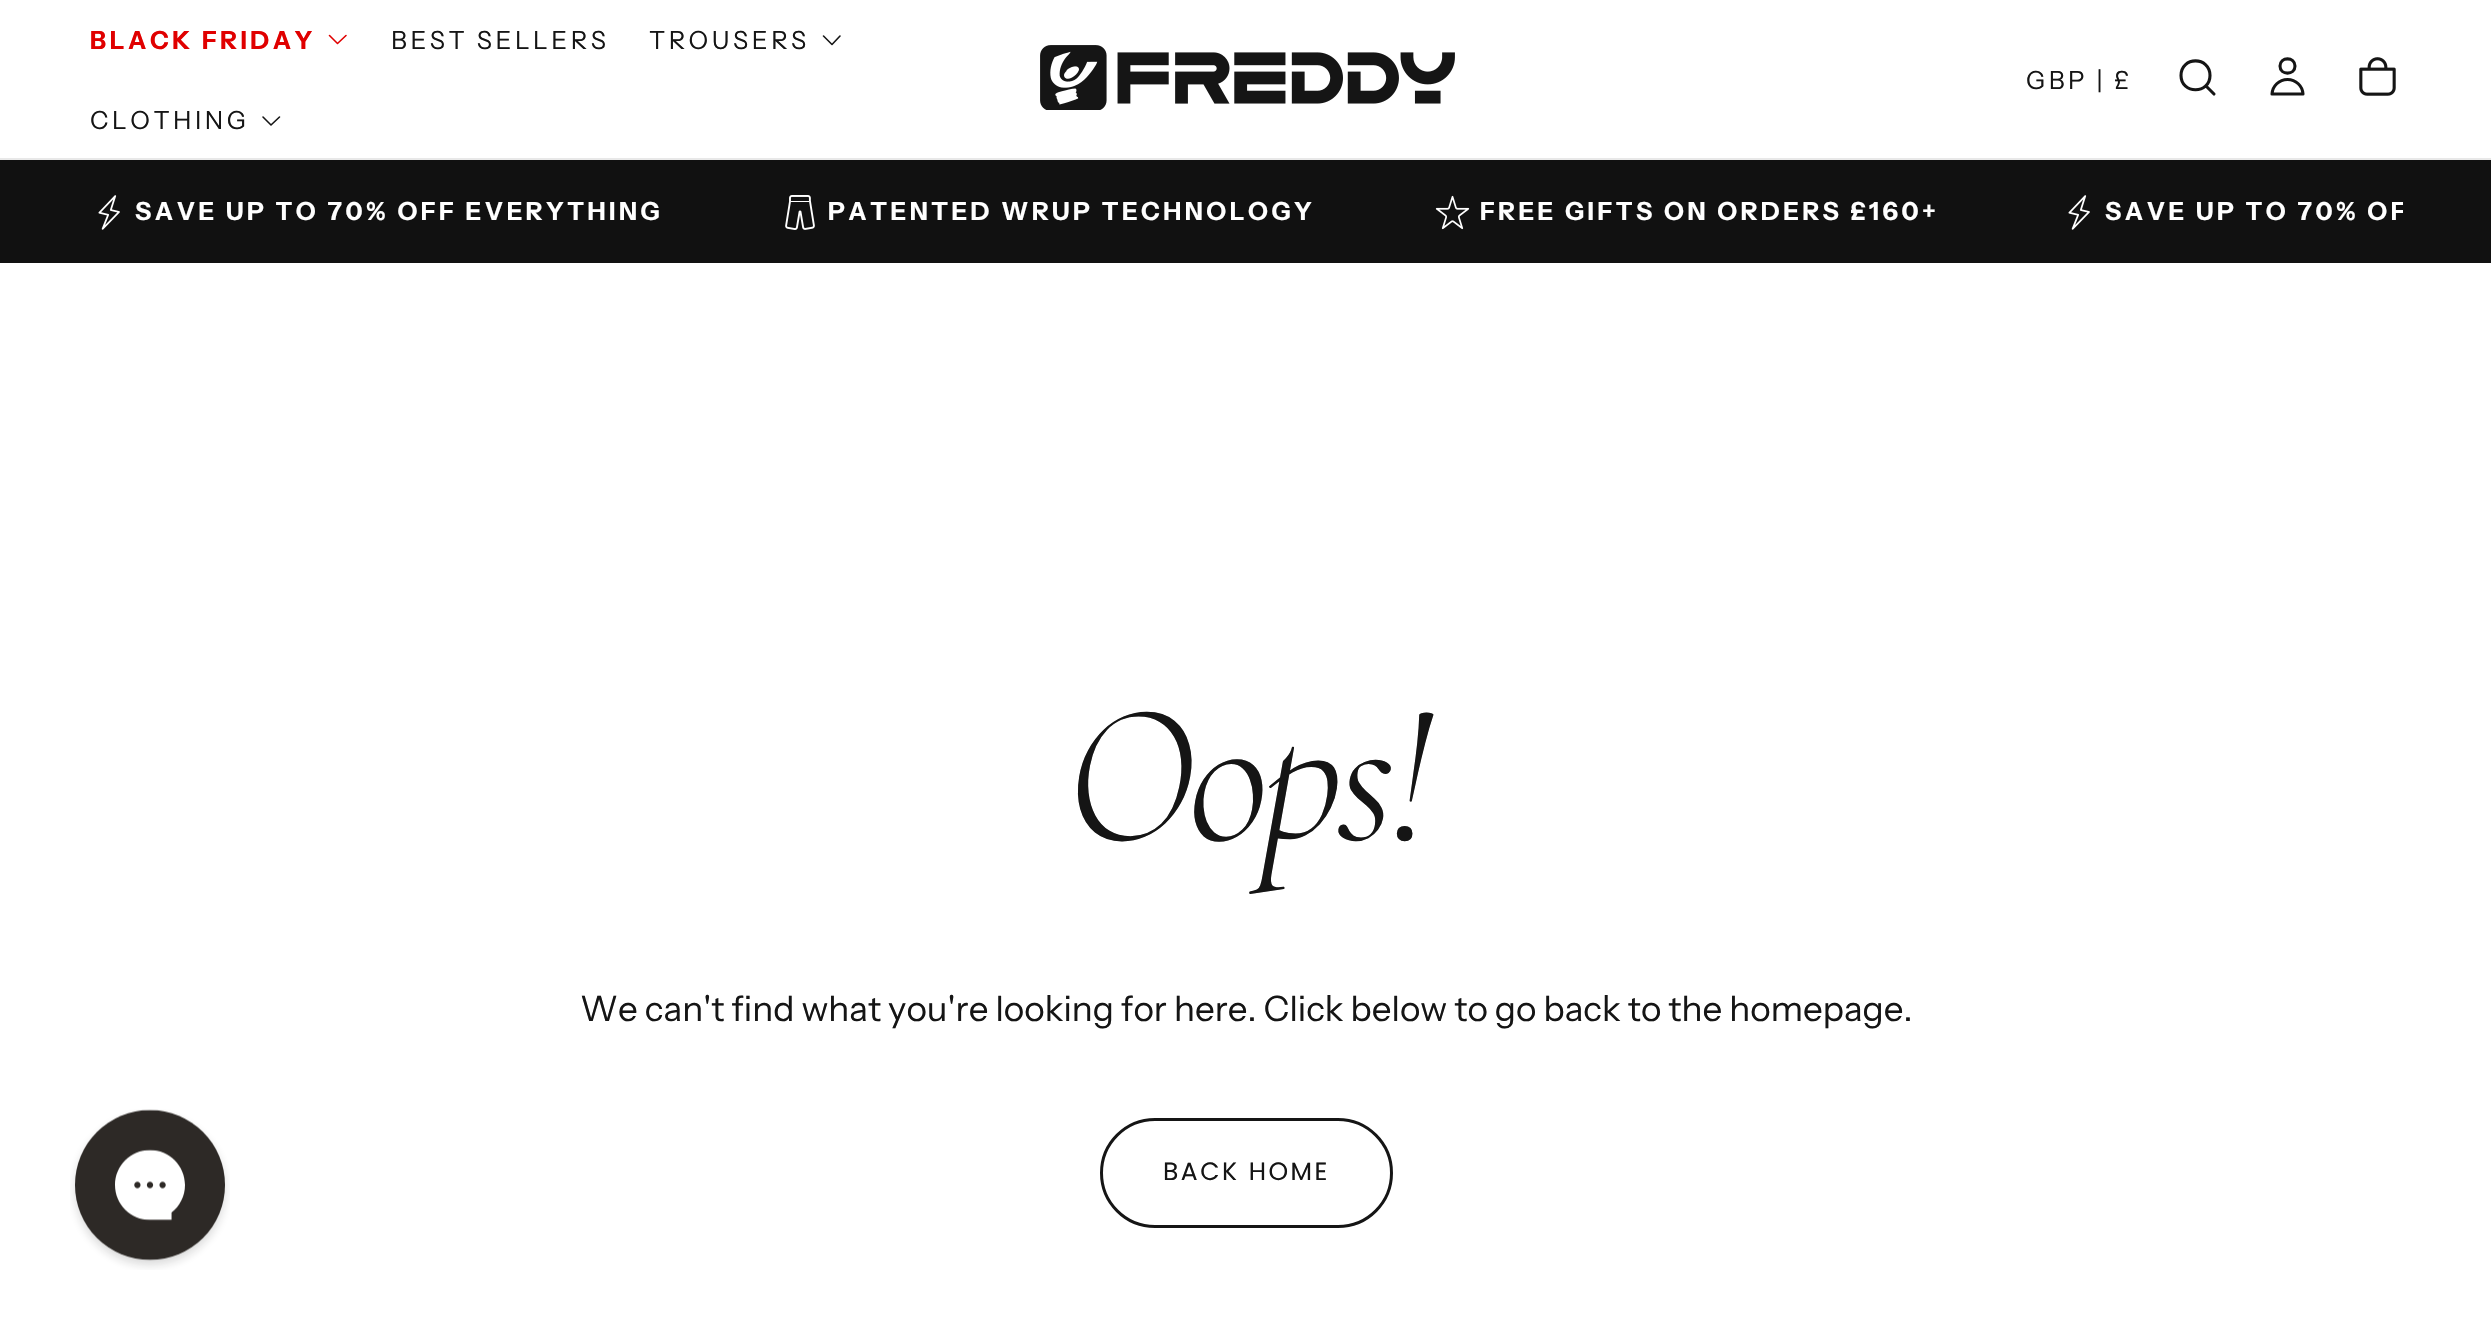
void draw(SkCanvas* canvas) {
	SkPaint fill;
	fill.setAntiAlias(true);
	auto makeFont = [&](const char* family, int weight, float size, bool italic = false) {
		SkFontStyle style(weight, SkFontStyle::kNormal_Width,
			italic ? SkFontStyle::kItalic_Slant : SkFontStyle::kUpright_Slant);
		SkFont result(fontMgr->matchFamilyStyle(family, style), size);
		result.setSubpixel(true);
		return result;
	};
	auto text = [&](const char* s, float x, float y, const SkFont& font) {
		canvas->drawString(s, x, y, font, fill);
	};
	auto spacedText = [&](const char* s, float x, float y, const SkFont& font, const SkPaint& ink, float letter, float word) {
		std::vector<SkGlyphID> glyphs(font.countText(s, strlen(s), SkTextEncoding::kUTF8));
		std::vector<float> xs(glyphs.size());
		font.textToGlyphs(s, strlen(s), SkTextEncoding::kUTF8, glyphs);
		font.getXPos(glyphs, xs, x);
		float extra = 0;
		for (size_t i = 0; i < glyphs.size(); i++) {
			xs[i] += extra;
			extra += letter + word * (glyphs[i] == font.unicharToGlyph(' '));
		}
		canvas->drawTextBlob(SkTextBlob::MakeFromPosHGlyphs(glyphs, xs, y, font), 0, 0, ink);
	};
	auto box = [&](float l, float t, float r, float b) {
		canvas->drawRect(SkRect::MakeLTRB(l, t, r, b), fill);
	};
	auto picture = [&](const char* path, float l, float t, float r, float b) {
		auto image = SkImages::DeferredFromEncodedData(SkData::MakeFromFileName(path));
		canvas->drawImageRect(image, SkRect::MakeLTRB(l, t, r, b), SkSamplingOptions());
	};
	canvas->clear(0xFFFFFFFF);
	fill.setColor(0xFFE8E8E8);
	box(0, 158, 2491, 160);
	fill.setStyle(SkPaint::kStroke_Style);
	fill.setStrokeWidth(1.6f);
	fill.setStrokeCap(SkPaint::kRound_Cap);
	fill.setStrokeJoin(SkPaint::kRound_Join);
	fill.setColor(0xFFE00000);
	canvas->drawPath(SkPathBuilder().moveTo(346, 35.5f).lineTo(337.5f, 43.5f).lineTo(329.5f, 35.5f).detach(), fill);
	fill.setColor(0xFF151515);
	canvas->drawPath(SkPathBuilder().moveTo(840, 36).lineTo(832, 44.5f).lineTo(823.5f, 36).detach(), fill);
	canvas->drawPath(SkPathBuilder().moveTo(279.5f, 117).lineTo(271, 125).lineTo(263, 117).detach(), fill);
	picture("image0.png", 1040, 45, 1455, 110);
	fill.setStrokeWidth(3.1f);
	fill.setStrokeJoin(SkPaint::kMiter_Join);
	canvas->drawPath(SkPathBuilder().moveTo(2214, 94).lineTo(2206, 86).moveTo(2210, 75.5f).cubicTo(2210, 94.5f, 2181, 94.5f, 2181, 75.5f).cubicTo(2181, 56, 2210, 56, 2210, 75.5f).close().detach(), fill);
	fill.setStrokeCap(SkPaint::kButt_Cap);
	fill.setStrokeJoin(SkPaint::kRound_Join);
	canvas->drawPath(SkPathBuilder().moveTo(2295, 66).cubicTo(2295, 75.5f, 2280, 75.5f, 2280, 66).cubicTo(2280, 56.5f, 2295, 56.5f, 2295, 66).close().moveTo(2287.5f, 79.5f).cubicTo(2279, 79.5f, 2272.5f, 86, 2272, 94).lineTo(2303, 94).cubicTo(2302.5f, 86, 2296, 79.5f, 2287.5f, 79.5f).close().detach(), fill);
	picture("image1.png", 2359, 57, 2396, 96);
	fill.setStyle(SkPaint::kFill_Style);
	fill.setColor(0xFF111111);
	box(0, 160, 2491, 263);
	picture("image2.png", 98, 195, 120, 230);
	picture("image3.png", 785, 195, 815, 230);
	picture("image4.png", 1435, 195, 1470, 230);
	picture("image2.png", 2068, 195, 2090, 230);
	picture("image5.png", 70, 1109, 230, 1270);
	fill.setStyle(SkPaint::kStroke_Style);
	fill.setStrokeWidth(3);
	fill.setStrokeJoin(SkPaint::kMiter_Join);
	fill.setColor(0xFF151515);
	canvas->drawRoundRect(SkRect::MakeLTRB(1101.5f, 1119.5f, 1391.5f, 1226.5f), 53.5f, 53.5f, fill);
	auto font1 = makeFont("Instrument Sans", 700, 25);
	fill.setStyle(SkPaint::kFill_Style);
	fill.setColor(0xFFE00000);
	spacedText("BLACK FRIDAY", 90, 49, font1, fill, 3.5f, 0);
	auto font2 = makeFont("Instrument Sans", 400, 25);
	fill.setColor(0xFF151515);
	spacedText("BEST SELLERS", 391, 49, font2, fill, 3.5f, 0);
	spacedText("TROUSERS", 649, 49, font2, fill, 3.5f, 0);
	spacedText("CLOTHING", 90, 129, font2, fill, 3.5f, 0);
	spacedText("GBP | £", 2026, 89, font2, fill, 3.5f, 0);
	fill.setColor(0xFFFFFFFF);
	spacedText("SAVE UP TO 70% OFF EVERYTHING", 135, 220, font1, fill, 3.5f, 0);
	spacedText("PATENTED WRUP TECHNOLOGY", 828, 220, font1, fill, 3.5f, 0);
	spacedText("FREE GIFTS ON ORDERS £160+", 1480, 220, font1, fill, 3.5f, 0);
	canvas->save();
	canvas->clipRect(SkRect::MakeLTRB(90, 180, 2403, 235));
	spacedText("SAVE UP TO 70% OF", 2105, 220, font1, fill, 3.5f, 0);
	canvas->restore();
	auto font3 = makeFont("Cormorant", 300, 200, true);
	fill.setColor(0xFF151515);
	spacedText("Oops!", 1065, 839, font3, fill, -6.5f, 0);
	auto font4 = makeFont("Instrument Sans", 400, 35);
	text("We can't find what you're looking for here. Click below to go back to the homepage.", 580, 1021, font4);
	auto font5 = makeFont("Poppins", 400, 25);
	spacedText("BACK HOME", 1163, 1180, font5, fill, 2.5f, 0);
}
